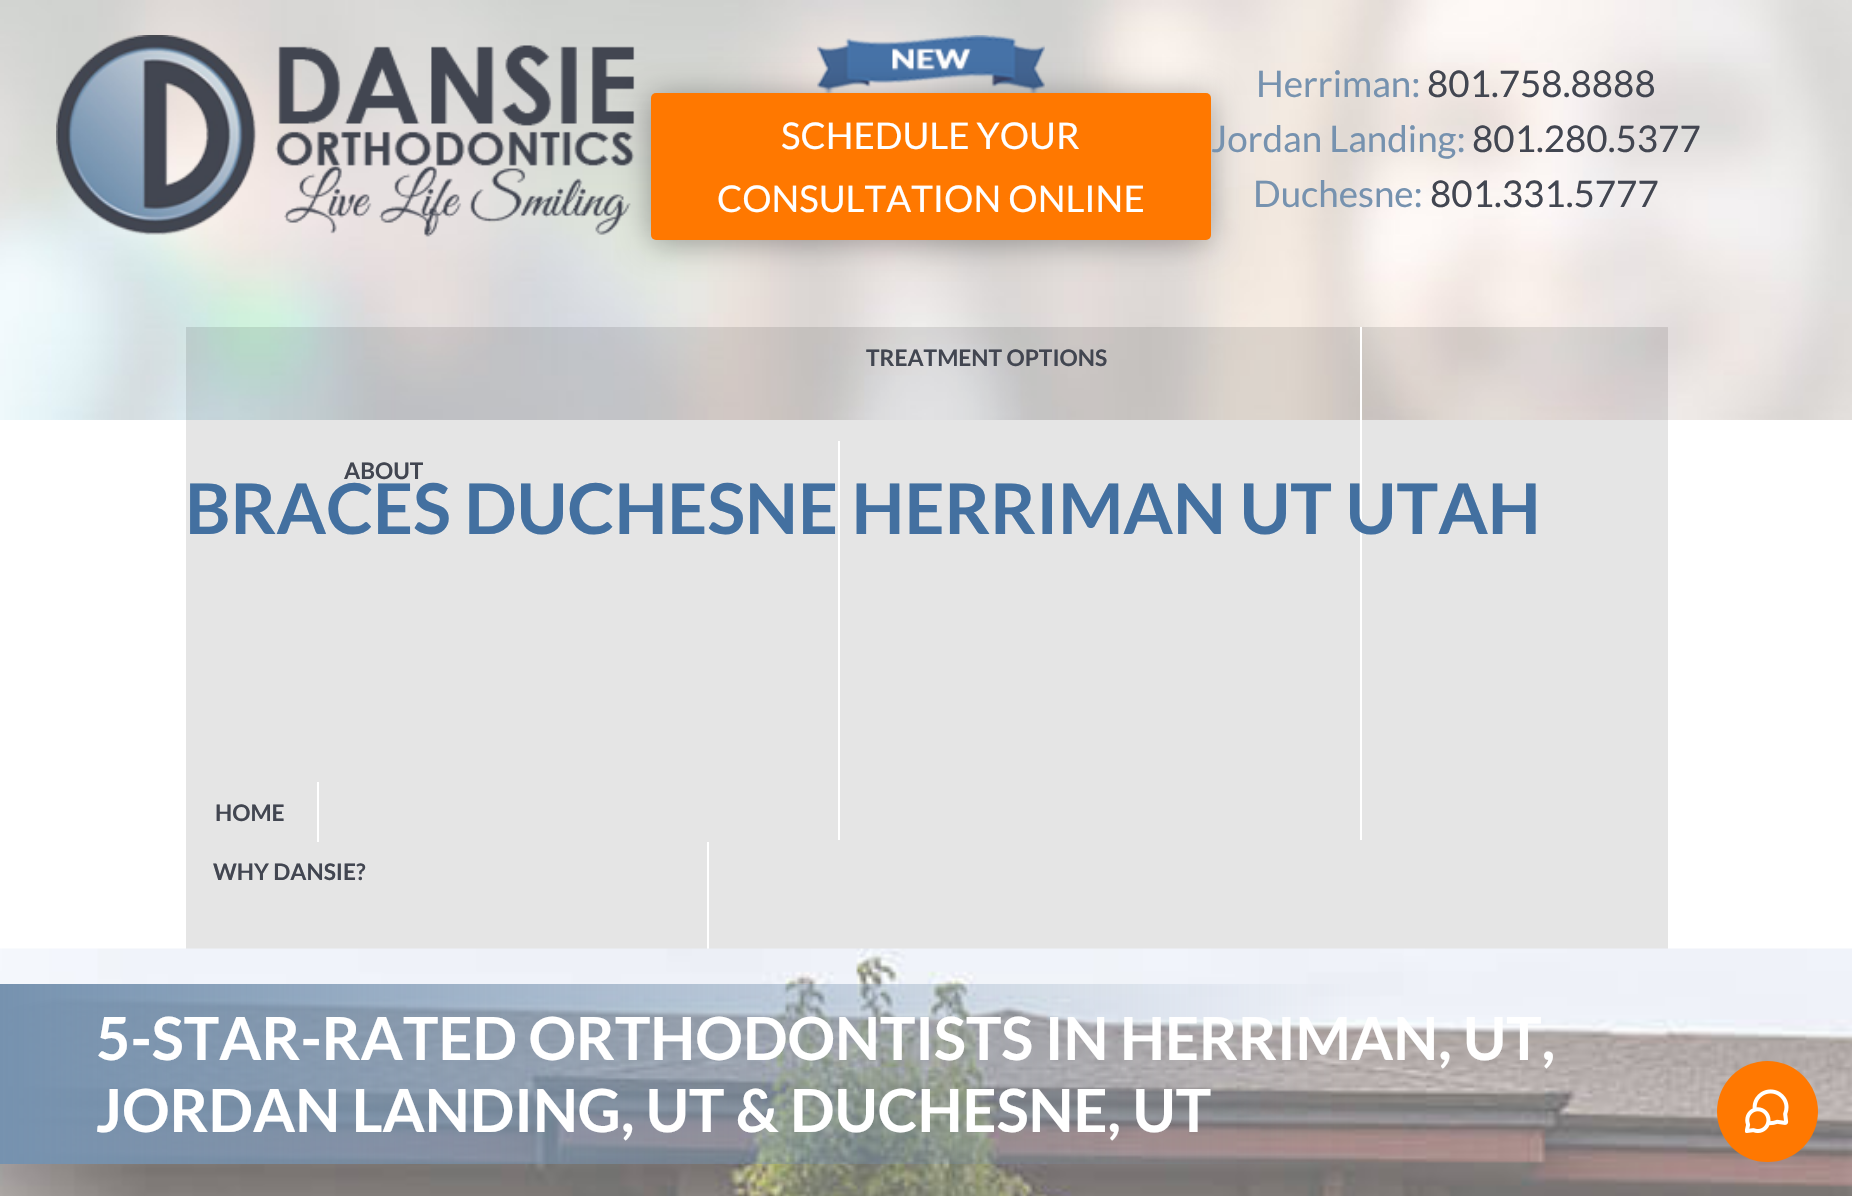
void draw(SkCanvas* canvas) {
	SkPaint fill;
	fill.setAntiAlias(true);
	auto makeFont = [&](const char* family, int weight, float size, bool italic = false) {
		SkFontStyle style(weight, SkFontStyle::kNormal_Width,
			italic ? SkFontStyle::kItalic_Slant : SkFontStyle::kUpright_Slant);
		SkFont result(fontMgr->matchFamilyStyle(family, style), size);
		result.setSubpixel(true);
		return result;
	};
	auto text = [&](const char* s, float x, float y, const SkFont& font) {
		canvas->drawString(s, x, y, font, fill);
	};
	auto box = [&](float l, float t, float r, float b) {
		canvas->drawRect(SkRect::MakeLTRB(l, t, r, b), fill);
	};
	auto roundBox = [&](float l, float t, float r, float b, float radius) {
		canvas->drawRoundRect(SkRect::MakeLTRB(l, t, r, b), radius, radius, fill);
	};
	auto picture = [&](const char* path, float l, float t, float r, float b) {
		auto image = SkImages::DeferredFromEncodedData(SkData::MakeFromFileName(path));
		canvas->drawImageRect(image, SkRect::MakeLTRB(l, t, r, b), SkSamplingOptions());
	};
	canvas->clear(0xFFFFFFFF);
	picture("image0.png", 0, 0, 1852, 420);
	picture("image1.png", 56, 35, 635, 237);
	picture("image2.png", 817, 35, 1045, 93);
	fill.setColor(0x57000000);
	fill.setMaskFilter(SkMaskFilter::MakeBlur(kNormal_SkBlurStyle, 16));
	canvas->drawRoundRect(SkRect::MakeLTRB(651, 96, 1211, 243), 5, 5, fill);
	fill.setMaskFilter(nullptr);
	fill.setColor(0xFFFF7800);
	roundBox(651, 93, 1211, 240, 5);
	fill.setColor(0x1A000000);
	box(186, 327, 1668, 949);
	fill.setColor(0xFFFFFFFF);
	box(1360, 327, 1362, 840);
	box(838, 441, 840, 840);
	box(317, 782, 319, 842);
	box(707, 842, 709, 949);
	picture("image3.png", 0, 948, 1852, 1196);
	fill.setColor(0xFFFF7801);
	canvas->drawCircle(1767.5f, 1111.5f, 50.5f, fill);
	picture("image4.png", 1745, 1089, 1789, 1133);
	auto font1 = makeFont("Lato", 400, 36.75f);
	fill.setColor(0xFFFFFFFF);
	text("SCHEDULE YOUR", 781, 149, font1);
	text("CONSULTATION ONLINE", 717, 212, font1);
	fill.setColor(0xFF7692AF);
	text("Herriman:", 1256, 97, font1);
	fill.setColor(0xFF424651);
	text("801.758.8888", 1427, 97, font1);
	fill.setColor(0xFF7692AF);
	text("Jordan Landing:", 1211, 152, font1);
	fill.setColor(0xFF424651);
	text("801.280.5377", 1472, 152, font1);
	fill.setColor(0xFF7692AF);
	text("Duchesne:", 1253, 207, font1);
	fill.setColor(0xFF424651);
	text("801.331.5777", 1430, 207, font1);
	auto font2 = makeFont("Lato", 700, 22.75f);
	text("TREATMENT OPTIONS", 866, 366, font2);
	text("ABOUT", 344, 479, font2);
	text("HOME", 215, 821, font2);
	text("WHY DANSIE?", 213, 880, font2);
	auto font3 = makeFont("Lato", 700, 70);
	fill.setColor(0xFF4370A0);
	text("BRACES DUCHESNE HERRIMAN UT UTAH", 185, 534, font3);
	auto font4 = makeFont("Lato", 700, 59.5f);
	fill.setColor(0xFFFFFFFF);
	text("5-STAR-RATED ORTHODONTISTS IN HERRIMAN, UT,", 96, 1060, font4);
	text("JORDAN LANDING, UT & DUCHESNE, UT", 96, 1132, font4);
}
